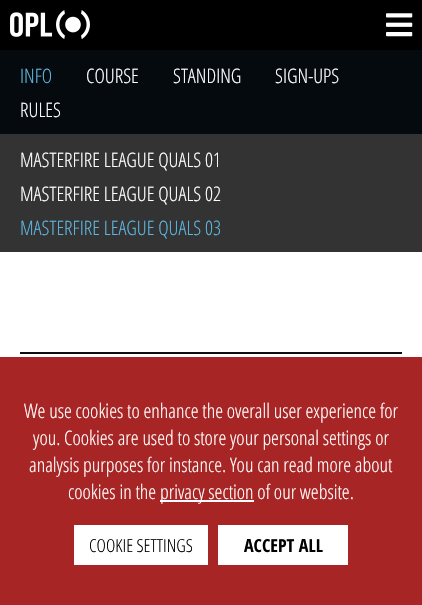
void draw(SkCanvas* canvas) {
	SkPaint fill;
	fill.setAntiAlias(true);
	auto makeFont = [&](const char* family, int weight, float size, bool italic = false) {
		SkFontStyle style(weight, SkFontStyle::kNormal_Width,
			italic ? SkFontStyle::kItalic_Slant : SkFontStyle::kUpright_Slant);
		SkFont result(fontMgr->matchFamilyStyle(family, style), size);
		result.setSubpixel(true);
		return result;
	};
	auto text = [&](const char* s, float x, float y, const SkFont& font) {
		canvas->drawString(s, x, y, font, fill);
	};
	auto box = [&](float l, float t, float r, float b) {
		canvas->drawRect(SkRect::MakeLTRB(l, t, r, b), fill);
	};
	auto picture = [&](const char* path, float l, float t, float r, float b) {
		auto image = SkImages::DeferredFromEncodedData(SkData::MakeFromFileName(path));
		canvas->drawImageRect(image, SkRect::MakeLTRB(l, t, r, b), SkSamplingOptions());
	};
	canvas->clear(0xFFFFFFFF);
	fill.setColor(0xFF000000);
	box(0, 0, 422, 50);
	picture("image0.png", 10, 10, 90, 39);
	picture("image1.png", 386, 13, 413, 37);
	fill.setColor(0xFF050A0F);
	box(0, 50, 422, 134);
	fill.setColor(0xFF333333);
	box(0, 134, 422, 252);
	fill.setColor(0xFF0D0D0D);
	box(20, 352, 402, 354);
	fill.setColor(0xFFA72525);
	box(0, 357, 422, 605);
	fill.setColor(0xFFFFFFFF);
	box(160, 500, 254, 502);
	box(74, 525, 208, 565);
	box(218, 525, 348, 565);
	auto font1 = makeFont("Open Sans", 300, 20);
	fill.setColor(0xFF5EB6E0);
	text("INFO", 20, 83, font1);
	fill.setColor(0xFFFFFFFF);
	text("COURSE", 86, 83, font1);
	text("STANDING", 173, 83, font1);
	text("SIGN-UPS", 275, 83, font1);
	text("RULES", 20, 117, font1);
	text("MASTERFIRE LEAGUE QUALS 01", 20, 167, font1);
	text("MASTERFIRE LEAGUE QUALS 02", 20, 201, font1);
	fill.setColor(0xFF5EB6E0);
	text("MASTERFIRE LEAGUE QUALS 03", 20, 235, font1);
	fill.setColor(0xFFFFFFFF);
	text("We use cookies to enhance the overall user experience for", 24, 418, font1);
	text("you. Cookies are used to store your personal settings or", 33, 445, font1);
	text("analysis purposes for instance. You can read more about", 29, 472, font1);
	text("cookies in the", 68, 499, font1);
	text("privacy section of our website.", 160, 499, font1);
	auto font2 = makeFont("Open Sans", 300, 18);
	fill.setColor(0xFF000000);
	text("COOKIE SETTINGS", 89, 552, font2);
	auto font3 = makeFont("Open Sans Condensed", 700, 18);
	text("ACCEPT ALL", 244, 552, font3);
}
